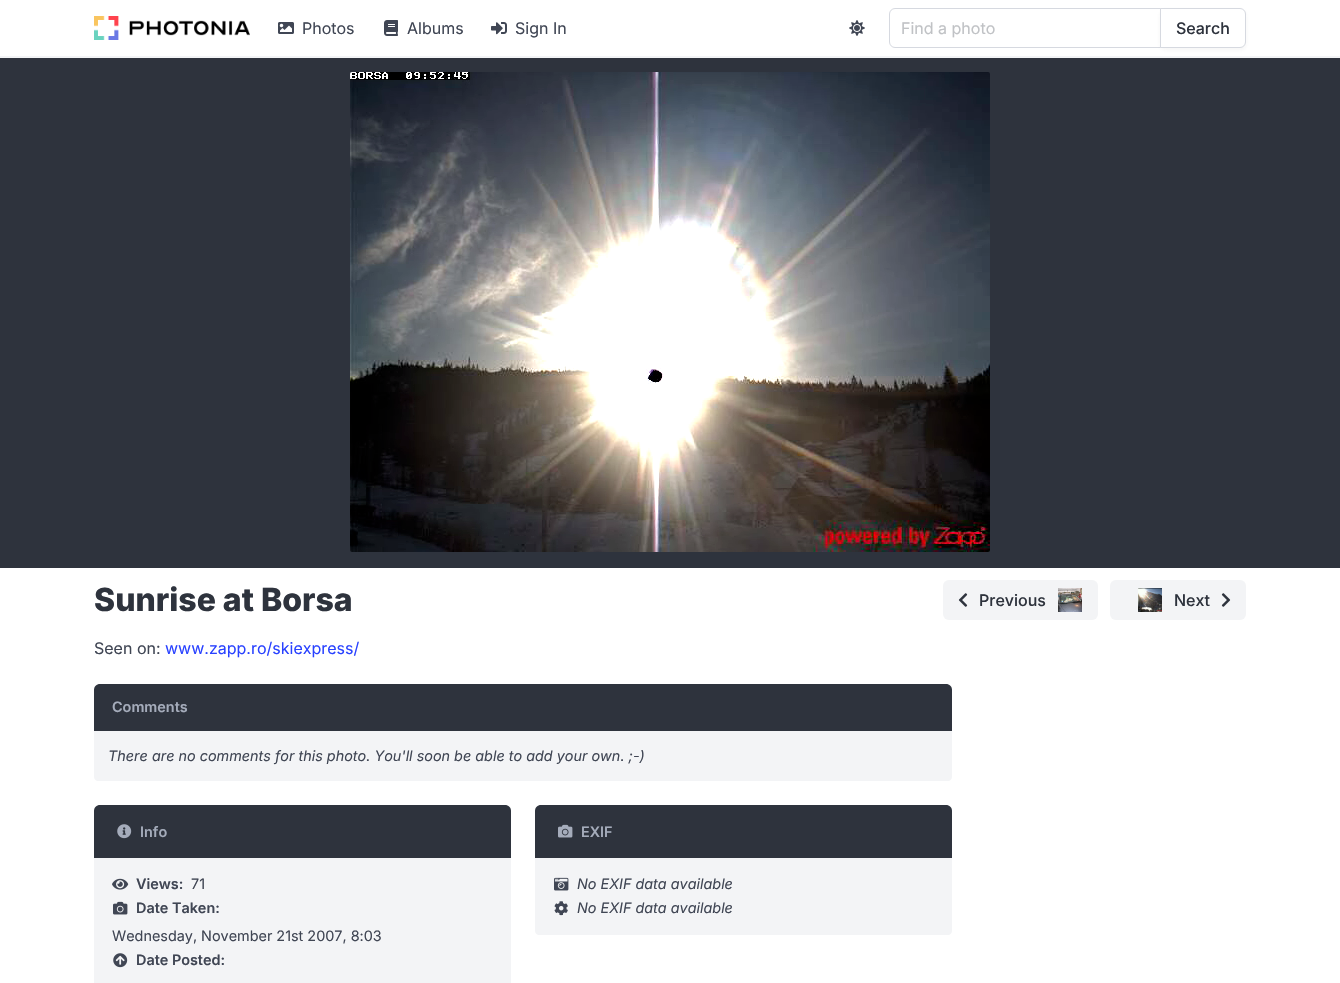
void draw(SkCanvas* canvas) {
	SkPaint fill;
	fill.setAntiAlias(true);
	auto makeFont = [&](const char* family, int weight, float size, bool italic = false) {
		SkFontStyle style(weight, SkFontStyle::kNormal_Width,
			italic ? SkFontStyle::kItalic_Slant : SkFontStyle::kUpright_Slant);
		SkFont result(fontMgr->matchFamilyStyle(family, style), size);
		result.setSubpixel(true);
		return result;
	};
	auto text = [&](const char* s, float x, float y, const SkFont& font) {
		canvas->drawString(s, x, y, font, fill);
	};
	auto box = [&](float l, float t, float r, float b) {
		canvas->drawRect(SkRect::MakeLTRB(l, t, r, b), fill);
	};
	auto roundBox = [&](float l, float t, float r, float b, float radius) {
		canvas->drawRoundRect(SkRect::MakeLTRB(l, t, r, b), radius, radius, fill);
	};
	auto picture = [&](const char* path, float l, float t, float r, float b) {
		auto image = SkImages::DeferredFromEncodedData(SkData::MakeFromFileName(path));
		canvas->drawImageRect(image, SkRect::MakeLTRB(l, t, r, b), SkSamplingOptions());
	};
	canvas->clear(0xFFFFFFFF);
	fill.setColor(0xFFF3F4F6);
	box(0, 56, 1340, 58);
	picture("image0.png", 94, 16, 250, 40);
	picture("image1.png", 278, 22, 294, 34);
	picture("image2.png", 384, 20, 398, 36);
	picture("image3.png", 491, 22, 507, 35);
	picture("image4.png", 849, 20, 865, 36);
	fill.setStyle(SkPaint::kStroke_Style);
	fill.setStrokeWidth(1);
	fill.setColor(0xFFD6D9E0);
	canvas->drawPath(SkPathBuilder().moveTo(895, 8.5f).lineTo(1160.5f, 8.5f).lineTo(1160.5f, 47.5f).lineTo(895, 47.5f).cubicTo(892, 47.5f, 889.5f, 45, 889.5f, 42).lineTo(889.5f, 14).cubicTo(889.5f, 11, 892, 8.5f, 895, 8.5f).close().detach(), fill);
	fill.setStyle(SkPaint::kFill_Style);
	fill.setColor(0x0D333333);
	fill.setMaskFilter(SkMaskFilter::MakeBlur(kNormal_SkBlurStyle, 2));
	canvas->drawRoundRect(SkRect::MakeLTRB(1160, 10, 1246, 50), 6, 6, fill);
	fill.setMaskFilter(nullptr);
	fill.setColor(0xFFFFFFFF);
	canvas->drawPath(SkPathBuilder().moveTo(1160.5f, 8.5f).lineTo(1240, 8.5f).cubicTo(1243, 8.5f, 1245.5f, 11, 1245.5f, 14).lineTo(1245.5f, 42).cubicTo(1245.5f, 45, 1243, 47.5f, 1240, 47.5f).lineTo(1160.5f, 47.5f).close().detach(), fill);
	fill.setStyle(SkPaint::kStroke_Style);
	fill.setColor(0xFFD6D9E0);
	canvas->drawPath(SkPathBuilder().moveTo(1160.5f, 8.5f).lineTo(1240, 8.5f).cubicTo(1243, 8.5f, 1245.5f, 11, 1245.5f, 14).lineTo(1245.5f, 42).cubicTo(1245.5f, 45, 1243, 47.5f, 1240, 47.5f).lineTo(1160.5f, 47.5f).close().detach(), fill);
	fill.setStyle(SkPaint::kFill_Style);
	fill.setColor(0xFF2E333D);
	box(0, 58, 1340, 568);
	picture("image5.png", 350, 72, 990, 552);
	fill.setColor(0xFFF3F4F6);
	roundBox(943, 580, 1098, 620, 6);
	picture("image6.png", 958, 593, 968, 607);
	picture("image7.png", 1058, 588, 1082, 612);
	roundBox(1110, 580, 1246, 620, 6);
	picture("image8.png", 1138, 588, 1162, 612);
	picture("image9.png", 1221, 593, 1231, 607);
	fill.setColor(0xFF2E333D);
	canvas->drawPath(SkPathBuilder().moveTo(100, 684).lineTo(946, 684).cubicTo(949.5f, 684, 952, 686.5f, 952, 690).lineTo(952, 731).lineTo(94, 731).lineTo(94, 690).cubicTo(94, 686.5f, 96.5f, 684, 100, 684).close().detach(), fill);
	fill.setColor(0xFFF3F4F6);
	canvas->drawPath(SkPathBuilder().moveTo(94, 731).lineTo(952, 731).lineTo(952, 777).cubicTo(952, 779, 950, 781, 948, 781).lineTo(98, 781).cubicTo(96, 781, 94, 779, 94, 777).close().detach(), fill);
	fill.setColor(0xFF2E333D);
	canvas->drawPath(SkPathBuilder().moveTo(100, 805).lineTo(505, 805).cubicTo(508.5f, 805, 511, 807.5f, 511, 811).lineTo(511, 858).lineTo(94, 858).lineTo(94, 811).cubicTo(94, 807.5f, 96.5f, 805, 100, 805).close().detach(), fill);
	picture("image10.png", 117, 824, 132, 839);
	fill.setColor(0xFFF3F4F6);
	box(94, 858, 511, 983);
	picture("image11.png", 112, 878, 129, 890);
	picture("image12.png", 113, 901, 128, 915);
	picture("image13.png", 113, 953, 128, 968);
	fill.setColor(0xFF2E333D);
	canvas->drawPath(SkPathBuilder().moveTo(541, 805).lineTo(946, 805).cubicTo(949.5f, 805, 952, 807.5f, 952, 811).lineTo(952, 858).lineTo(535, 858).lineTo(535, 811).cubicTo(535, 807.5f, 537.5f, 805, 541, 805).close().detach(), fill);
	picture("image14.png", 558, 824, 573, 838);
	fill.setColor(0xFFF3F4F6);
	canvas->drawPath(SkPathBuilder().moveTo(535, 858).lineTo(952, 858).lineTo(952, 931).cubicTo(952, 933, 950, 935, 948, 935).lineTo(539, 935).cubicTo(537, 935, 535, 933, 535, 931).close().detach(), fill);
	picture("image15.png", 554, 877, 569, 891);
	picture("image16.png", 554, 901, 568, 916);
	auto font1 = makeFont("Inter", 400, 16);
	fill.setColor(0xFF404654);
	text("Photos", 302, 34, font1);
	text("Albums", 407, 34, font1);
	text("Sign In", 515, 34, font1);
	fill.setColor(0xFFC0C2C5);
	text("Find a photo", 901, 34, font1);
	auto font2 = makeFont("Inter", 500, 16);
	fill.setColor(0xFF2E333D);
	text("Search", 1176, 34, font2);
	auto font3 = makeFont("Inter", 800, 32);
	text("Sunrise at Borsa", 94, 611, font3);
	text("Previous", 979, 606, font2);
	text("Next", 1174, 606, font2);
	fill.setColor(0xFF404654);
	text("Seen on:", 94, 654, font1);
	fill.setColor(0xFF2942FF);
	text("www.zapp.ro/skiexpress/", 165, 654, font1);
	auto font4 = makeFont("Inter", 600, 14.4f);
	fill.setColor(0xFFA5ACBB);
	text("Comments", 112, 712, font4);
	auto font5 = makeFont("Inter", 400, 14.4f, true);
	fill.setColor(0xFF404654);
	text("There are no comments for this photo. You'll soon be able to add your own. ;-)", 108, 761, font5);
	fill.setColor(0xFFA5ACBB);
	text("Info", 140, 837, font4);
	fill.setColor(0xFF404654);
	text("Views:", 136, 889, font4);
	auto font6 = makeFont("Inter", 400, 14.4f);
	text("71", 191, 889, font6);
	text("Date Taken:", 136, 913, font4);
	text("Wednesday, November 21st 2007, 8:03", 112, 941, font6);
	text("Date Posted:", 136, 965, font4);
	fill.setColor(0xFFA5ACBB);
	text("EXIF", 581, 837, font4);
	fill.setColor(0xFF404654);
	text("No EXIF data available", 577, 889, font5);
	text("No EXIF data available", 577, 913, font5);
}
